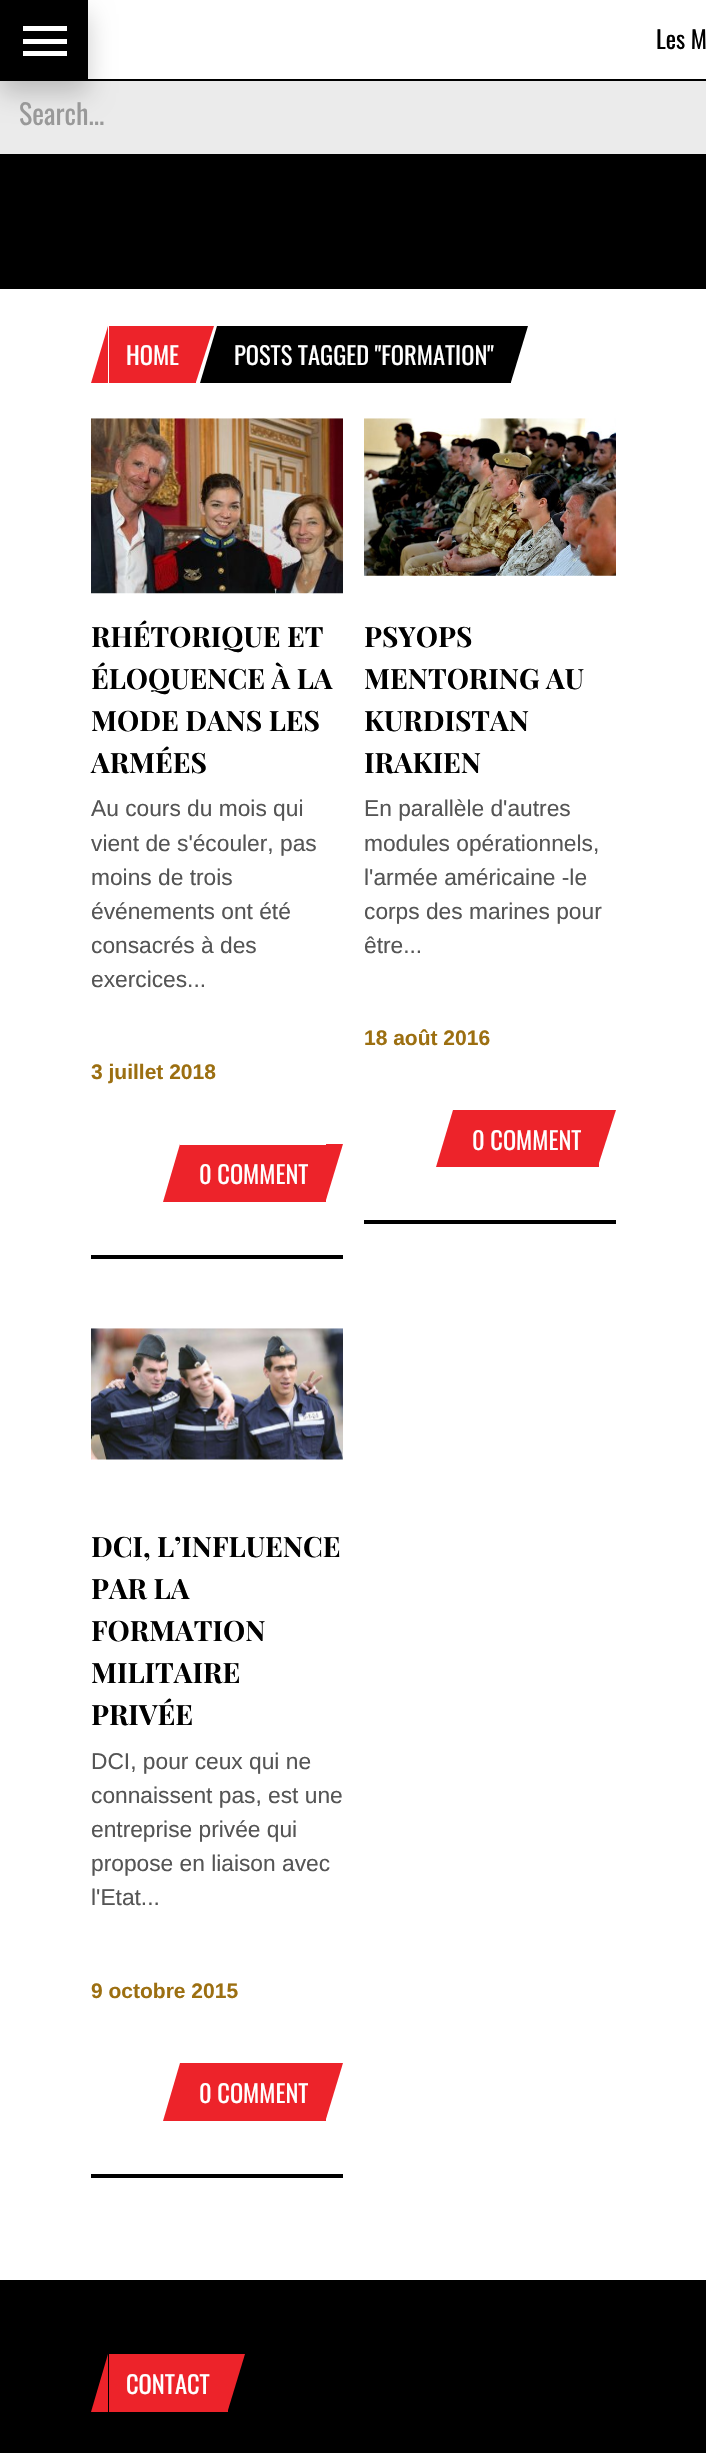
void draw(SkCanvas* canvas) {
	SkPaint fill;
	fill.setAntiAlias(true);
	auto makeFont = [&](const char* family, int weight, float size, bool italic = false) {
		SkFontStyle style(weight, SkFontStyle::kNormal_Width,
			italic ? SkFontStyle::kItalic_Slant : SkFontStyle::kUpright_Slant);
		SkFont result(fontMgr->matchFamilyStyle(family, style), size);
		result.setSubpixel(true);
		return result;
	};
	auto text = [&](const char* s, float x, float y, const SkFont& font) {
		canvas->drawString(s, x, y, font, fill);
	};
	auto box = [&](float l, float t, float r, float b) {
		canvas->drawRect(SkRect::MakeLTRB(l, t, r, b), fill);
	};
	auto picture = [&](const char* path, float l, float t, float r, float b) {
		auto image = SkImages::DeferredFromEncodedData(SkData::MakeFromFileName(path));
		canvas->drawImageRect(image, SkRect::MakeLTRB(l, t, r, b), SkSamplingOptions());
	};
	canvas->clear(0xFF000000);
	fill.setColor(0xFFFFFFFF);
	box(0, 289, 706, 2280);
	box(88, 0, 706, 79);
	fill.setColor(0xFFEBEBEB);
	box(0, 81, 706, 154);
	fill.setColor(0x33000000);
	fill.setMaskFilter(SkMaskFilter::MakeBlur(kNormal_SkBlurStyle, 13));
	canvas->drawRect(SkRect::MakeLTRB(0, 14, 88, 93), fill);
	fill.setMaskFilter(nullptr);
	fill.setColor(0xFFFFFFFF);
	box(23, 26, 67, 31);
	box(23, 39, 67, 44);
	box(23, 51, 67, 56);
	fill.setColor(0xFFED232A);
	box(109, 326, 196, 383);
	canvas->drawPath(SkPathBuilder().moveTo(108, 326).lineTo(108, 383).lineTo(91, 383).close().detach(), fill);
	canvas->drawPath(SkPathBuilder().moveTo(196, 382).lineTo(196, 326).lineTo(214, 326).close().detach(), fill);
	fill.setColor(0xFF000000);
	box(217, 326, 511, 383);
	canvas->drawPath(SkPathBuilder().moveTo(217, 326).lineTo(217, 383).lineTo(200, 383).close().detach(), fill);
	canvas->drawPath(SkPathBuilder().moveTo(511, 382).lineTo(511, 326).lineTo(528, 326).close().detach(), fill);
	box(91, 1255, 343, 1259);
	picture("image0.png", 91, 418, 343, 594);
	fill.setColor(0xFFED232A);
	box(180, 1145, 326, 1202);
	canvas->drawPath(SkPathBuilder().moveTo(180, 1144).lineTo(180, 1202).lineTo(163, 1202).close().detach(), fill);
	canvas->drawPath(SkPathBuilder().moveTo(326, 1200).lineTo(326, 1144).lineTo(343, 1144).close().detach(), fill);
	fill.setColor(0xFF000000);
	box(364, 1220, 616, 1224);
	picture("image1.png", 364, 418, 616, 576);
	fill.setColor(0xFFED232A);
	box(453, 1110, 599, 1167);
	canvas->drawPath(SkPathBuilder().moveTo(453, 1110).lineTo(453, 1167).lineTo(436, 1167).close().detach(), fill);
	canvas->drawPath(SkPathBuilder().moveTo(598, 1166).lineTo(598, 1110).lineTo(616, 1110).close().detach(), fill);
	fill.setColor(0xFF000000);
	box(91, 2174, 343, 2178);
	picture("image2.png", 91, 1328, 343, 1460);
	fill.setColor(0xFFED232A);
	box(180, 2063, 326, 2121);
	canvas->drawPath(SkPathBuilder().moveTo(180, 2063).lineTo(180, 2121).lineTo(163, 2121).close().detach(), fill);
	canvas->drawPath(SkPathBuilder().moveTo(326, 2119).lineTo(326, 2063).lineTo(343, 2063).close().detach(), fill);
	box(109, 2354, 228, 2412);
	canvas->drawPath(SkPathBuilder().moveTo(108, 2354).lineTo(108, 2412).lineTo(91, 2412).close().detach(), fill);
	canvas->drawPath(SkPathBuilder().moveTo(228, 2410).lineTo(228, 2354).lineTo(245, 2354).close().detach(), fill);
	auto font1 = makeFont("Oswald", 400, 24.5f);
	fill.setColor(0xFF000000);
	text("Les M", 656, 49, font1);
	auto font2 = makeFont("Oswald", 400, 28);
	fill.setColor(0xFF999999);
	text("Search...", 19, 125, font2);
	fill.setColor(0xFFFFFFFF);
	text("HOME", 126, 365, font1);
	text("POSTS TAGGED \"FORMATION\"", 234, 365, font1);
	auto font3 = makeFont("Playfair Display", 700, 28);
	fill.setColor(0xFF000000);
	text("RHÉTORIQUE ET", 91, 647, font3);
	text("ÉLOQUENCE À LA", 91, 689, font3);
	text("MODE DANS LES", 91, 731, font3);
	text("ARMÉES", 91, 773, font3);
	auto font4 = makeFont("Liberation Sans", 400, 22.75f);
	fill.setColor(0xFF555555);
	text("Au cours du mois qui", 91, 816, font4);
	text("vient de s'écouler, pas", 91, 851, font4);
	text("moins de trois", 91, 885, font4);
	text("événements ont été", 91, 919, font4);
	text("consacrés à des", 91, 953, font4);
	text("exercices...", 91, 987, font4);
	auto font5 = makeFont("Liberation Sans", 700, 21);
	fill.setColor(0xFF9C6F11);
	text("3 juillet 2018", 91, 1079, font5);
	fill.setColor(0xFFFFFFFF);
	text("0 COMMENT", 199, 1184, font1);
	fill.setColor(0xFF000000);
	text("PSYOPS", 364, 647, font3);
	text("MENTORING AU", 364, 689, font3);
	text("KURDISTAN", 364, 731, font3);
	text("IRAKIEN", 364, 773, font3);
	fill.setColor(0xFF555555);
	text("En parallèle d'autres", 364, 816, font4);
	text("modules opérationnels,", 364, 851, font4);
	text("l'armée américaine -le", 364, 885, font4);
	text("corps des marines pour", 364, 919, font4);
	text("être...", 364, 953, font4);
	fill.setColor(0xFF9C6F11);
	text("18 août 2016", 364, 1045, font5);
	fill.setColor(0xFFFFFFFF);
	text("0 COMMENT", 472, 1150, font1);
	fill.setColor(0xFF000000);
	text("DCI, L’INFLUENCE", 91, 1557, font3);
	text("PAR LA", 91, 1599, font3);
	text("FORMATION", 91, 1641, font3);
	text("MILITAIRE", 91, 1683, font3);
	text("PRIVÉE", 91, 1725, font3);
	fill.setColor(0xFF555555);
	text("DCI, pour ceux qui ne", 91, 1769, font4);
	text("connaissent pas, est une", 91, 1803, font4);
	text("entreprise privée qui", 91, 1837, font4);
	text("propose en liaison avec", 91, 1871, font4);
	text("l'Etat...", 91, 1905, font4);
	fill.setColor(0xFF9C6F11);
	text("9 octobre 2015", 91, 1998, font5);
	fill.setColor(0xFFFFFFFF);
	text("0 COMMENT", 199, 2103, font1);
	text("CONTACT", 126, 2394, font1);
}
